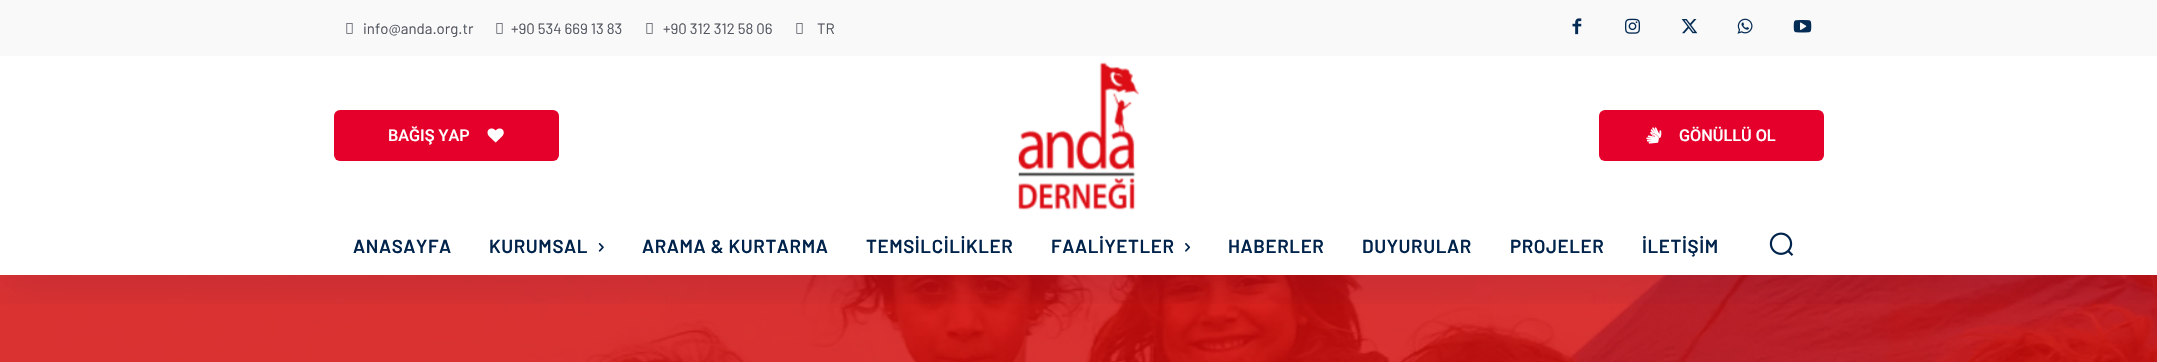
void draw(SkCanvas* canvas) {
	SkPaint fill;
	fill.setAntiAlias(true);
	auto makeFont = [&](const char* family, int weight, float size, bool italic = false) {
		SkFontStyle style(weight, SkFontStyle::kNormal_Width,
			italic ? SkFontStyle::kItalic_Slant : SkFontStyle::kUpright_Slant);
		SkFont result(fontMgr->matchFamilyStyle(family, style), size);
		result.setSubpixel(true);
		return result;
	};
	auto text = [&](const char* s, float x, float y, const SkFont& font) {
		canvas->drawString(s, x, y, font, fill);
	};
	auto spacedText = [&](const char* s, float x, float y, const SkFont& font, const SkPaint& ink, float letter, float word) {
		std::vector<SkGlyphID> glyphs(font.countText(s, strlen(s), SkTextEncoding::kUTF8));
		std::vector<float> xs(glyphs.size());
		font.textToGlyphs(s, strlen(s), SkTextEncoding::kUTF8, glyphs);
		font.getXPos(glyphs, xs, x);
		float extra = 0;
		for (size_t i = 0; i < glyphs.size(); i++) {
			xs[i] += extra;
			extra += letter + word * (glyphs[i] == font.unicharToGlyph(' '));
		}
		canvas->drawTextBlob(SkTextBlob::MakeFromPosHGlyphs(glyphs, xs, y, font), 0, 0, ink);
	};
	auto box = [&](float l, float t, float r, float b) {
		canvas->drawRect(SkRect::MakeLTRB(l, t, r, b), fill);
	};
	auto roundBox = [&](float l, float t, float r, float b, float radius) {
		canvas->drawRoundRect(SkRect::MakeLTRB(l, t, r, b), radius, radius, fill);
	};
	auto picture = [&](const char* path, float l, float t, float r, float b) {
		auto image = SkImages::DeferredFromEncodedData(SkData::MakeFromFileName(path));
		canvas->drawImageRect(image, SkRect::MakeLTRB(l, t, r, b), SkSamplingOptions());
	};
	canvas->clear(0xFFFFFFFF);
	fill.setColor(0xFFF9F9FA);
	box(0, 0, 2157, 56);
	picture("image1.png", 1572, 18, 1582, 35);
	picture("image2.png", 1625, 18, 1640, 34);
	picture("image3.png", 1681, 19, 1698, 34);
	picture("image4.png", 1737, 18, 1753, 34);
	picture("image5.png", 1793, 20, 1812, 33);
	fill.setColor(0xFFE4002B);
	roundBox(334, 110, 559, 161, 6);
	picture("image6.png", 487, 128, 504, 143);
	picture("image7.png", 1018, 62, 1139, 210);
	roundBox(1599, 110, 1824, 161, 6);
	picture("image8.png", 1646, 127, 1662, 144);
	picture("image12.png", 0, 275, 2157, 362);
	canvas->save();
	canvas->clipRect(SkRect::MakeLTRB(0, 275, 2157, 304));
	fill.setColor(0x1A020247);
	fill.setMaskFilter(SkMaskFilter::MakeBlur(kNormal_SkBlurStyle, 25));
	canvas->drawRect(SkRect::MakeLTRB(0, 8, 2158, 283), fill);
	fill.setMaskFilter(nullptr);
	canvas->restore();
	picture("image0.png", 346, 23, 353, 34);
	picture("image0.png", 496, 23, 503, 34);
	picture("image0.png", 646, 23, 653, 34);
	picture("image0.png", 796, 23, 803, 34);
	picture("image9.png", 598, 243, 604, 252);
	picture("image10.png", 1185, 243, 1191, 252);
	picture("image11.png", 1769, 232, 1794, 256);
	auto font1 = makeFont("Barlow", 400, 15);
	fill.setColor(0xFF52565E);
	text("info@anda.org.tr", 363, 34, font1);
	text("+90 534 669 13 83", 511, 34, font1);
	text("+90 312 312 58 06", 663, 34, font1);
	text("TR", 817, 34, font1);
	auto font2 = makeFont("Roboto", 500, 16.25f);
	fill.setColor(0xFFFFFFFF);
	text("BAĞIŞ YAP", 388, 141, font2);
	text("GÖNÜLLÜ OL", 1679, 141, font2);
	auto font3 = makeFont("Barlow", 600, 18.75f);
	fill.setColor(0xFF00234B);
	spacedText("ANASAYFA", 353, 253, font3, fill, 0.6f, 0);
	spacedText("KURUMSAL", 489, 253, font3, fill, 0.6f, 0);
	spacedText("ARAMA & KURTARMA", 642, 253, font3, fill, 0.6f, 0);
	spacedText("TEMSİLCİLİKLER", 866, 253, font3, fill, 0.6f, 0);
	spacedText("FAALİYETLER", 1051, 253, font3, fill, 0.6f, 0);
	spacedText("HABERLER", 1228, 253, font3, fill, 0.6f, 0);
	spacedText("DUYURULAR", 1362, 253, font3, fill, 0.6f, 0);
	spacedText("PROJELER", 1510, 253, font3, fill, 0.6f, 0);
	spacedText("İLETİŞİM", 1642, 253, font3, fill, 0.6f, 0);
}
